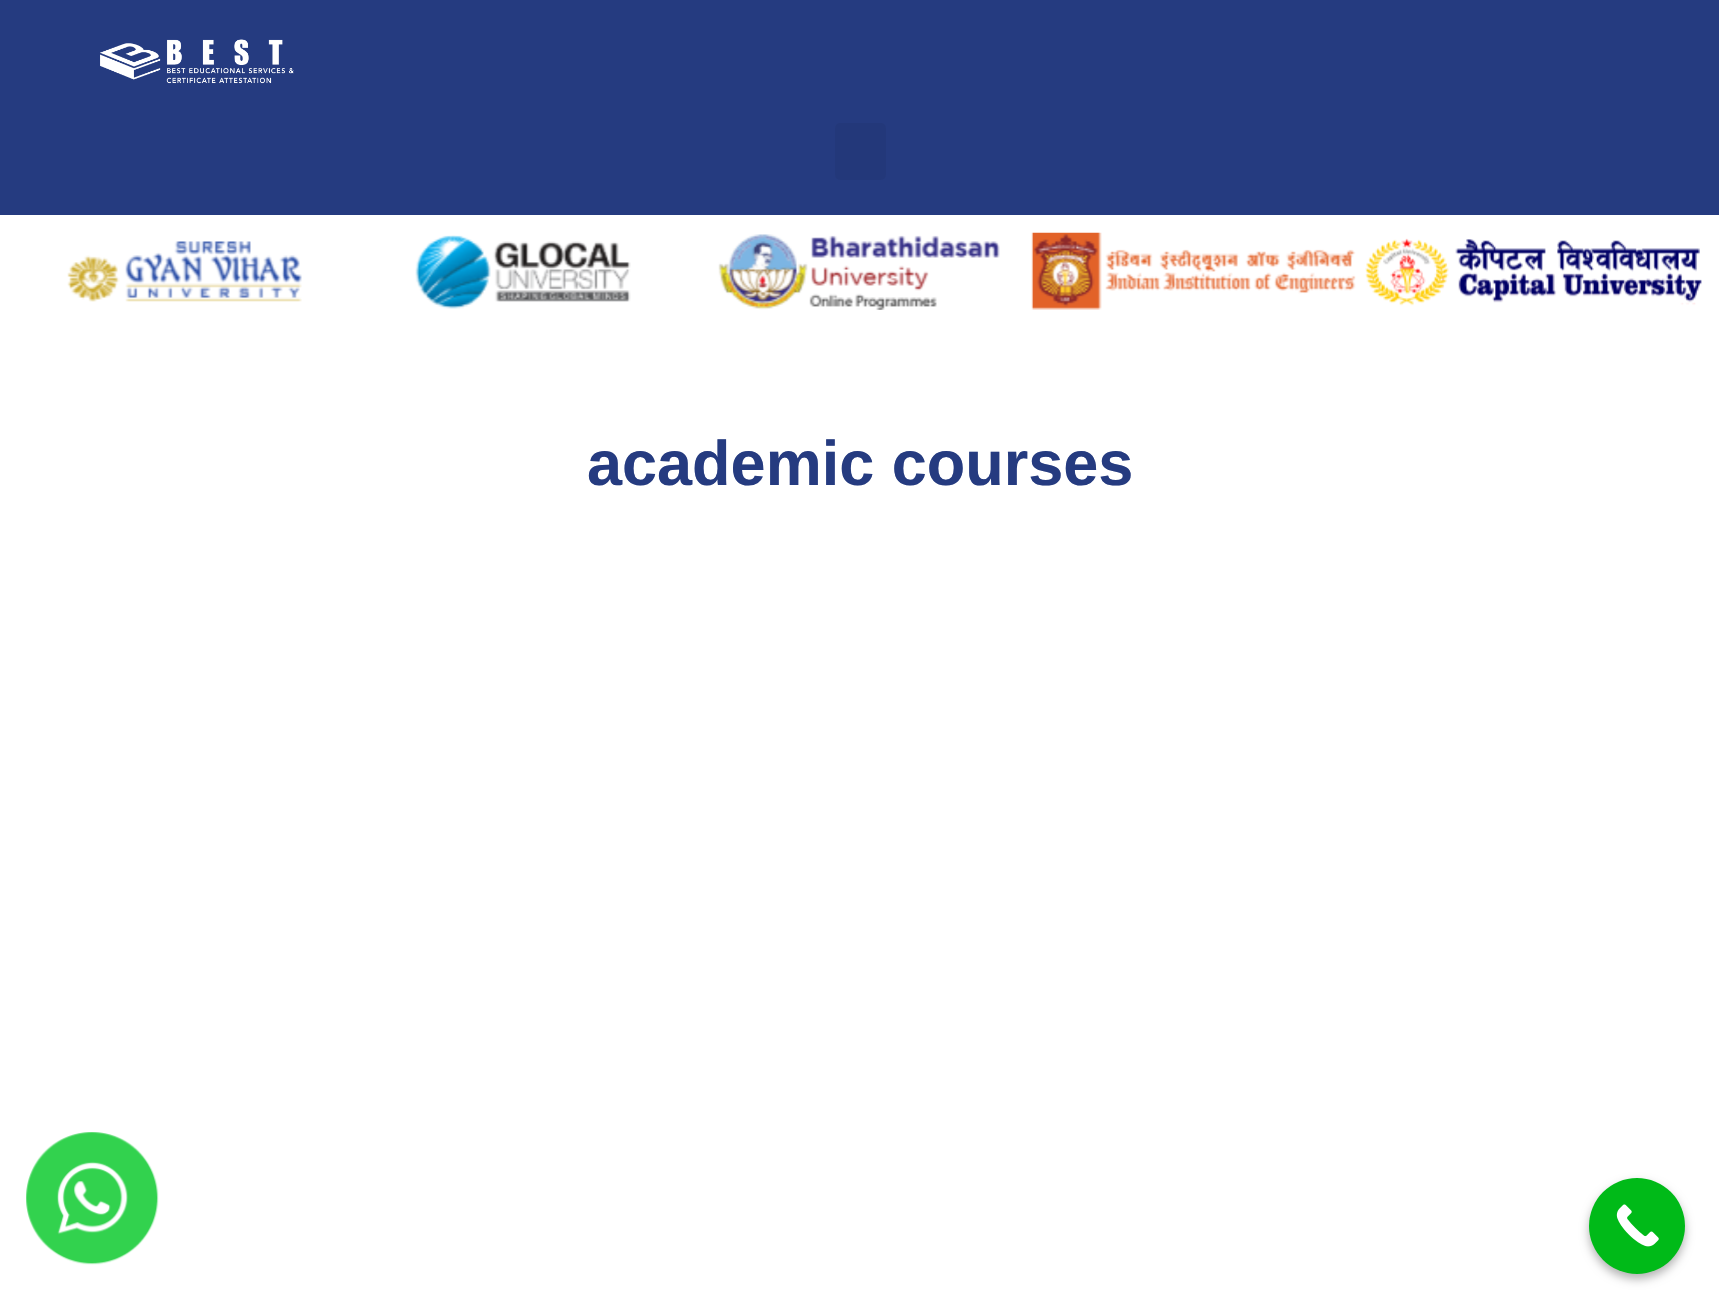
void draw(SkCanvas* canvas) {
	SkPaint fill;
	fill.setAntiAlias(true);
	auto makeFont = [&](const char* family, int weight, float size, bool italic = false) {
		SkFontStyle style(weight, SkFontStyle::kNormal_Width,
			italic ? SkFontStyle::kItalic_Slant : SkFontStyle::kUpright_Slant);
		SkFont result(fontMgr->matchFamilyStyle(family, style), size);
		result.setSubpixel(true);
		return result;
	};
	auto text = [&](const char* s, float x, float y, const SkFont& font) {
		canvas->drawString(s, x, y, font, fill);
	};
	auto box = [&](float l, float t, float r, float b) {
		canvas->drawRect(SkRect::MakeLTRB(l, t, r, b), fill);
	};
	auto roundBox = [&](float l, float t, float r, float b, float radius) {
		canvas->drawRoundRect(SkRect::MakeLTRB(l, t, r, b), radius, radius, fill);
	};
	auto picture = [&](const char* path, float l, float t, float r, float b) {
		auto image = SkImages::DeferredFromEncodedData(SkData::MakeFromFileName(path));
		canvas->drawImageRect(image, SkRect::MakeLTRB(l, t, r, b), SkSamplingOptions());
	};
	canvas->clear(0xFFFFFFFF);
	fill.setColor(0xFF253B80);
	box(0, 0, 1719, 215);
	picture("image0.png", 100, 39, 294, 84);
	fill.setColor(0xFF23387A);
	roundBox(835, 123, 886, 180, 5);
	picture("image1.png", 67, 241, 302, 302);
	picture("image2.png", 415, 235, 631, 309);
	picture("image3.png", 718, 234, 1000, 310);
	picture("image4.png", 1031, 232, 1356, 310);
	picture("image5.png", 1365, 238, 1702, 306);
	picture("image6.png", 26, 1132, 159, 1265);
	fill.setColor(0x4D000000);
	fill.setMaskFilter(SkMaskFilter::MakeBlur(kNormal_SkBlurStyle, 5));
	canvas->drawRoundRect(SkRect::MakeLTRB(1589, 1183, 1685, 1279), 48, 48, fill);
	fill.setMaskFilter(nullptr);
	fill.setColor(0xFF00BA18);
	canvas->drawCircle(1637, 1226, 48, fill);
	picture("image7.png", 1616, 1204, 1659, 1247);
	auto font1 = makeFont("Liberation Sans", 700, 63);
	fill.setColor(0xFF253B80);
	text("academic courses", 587, 485, font1);
}
